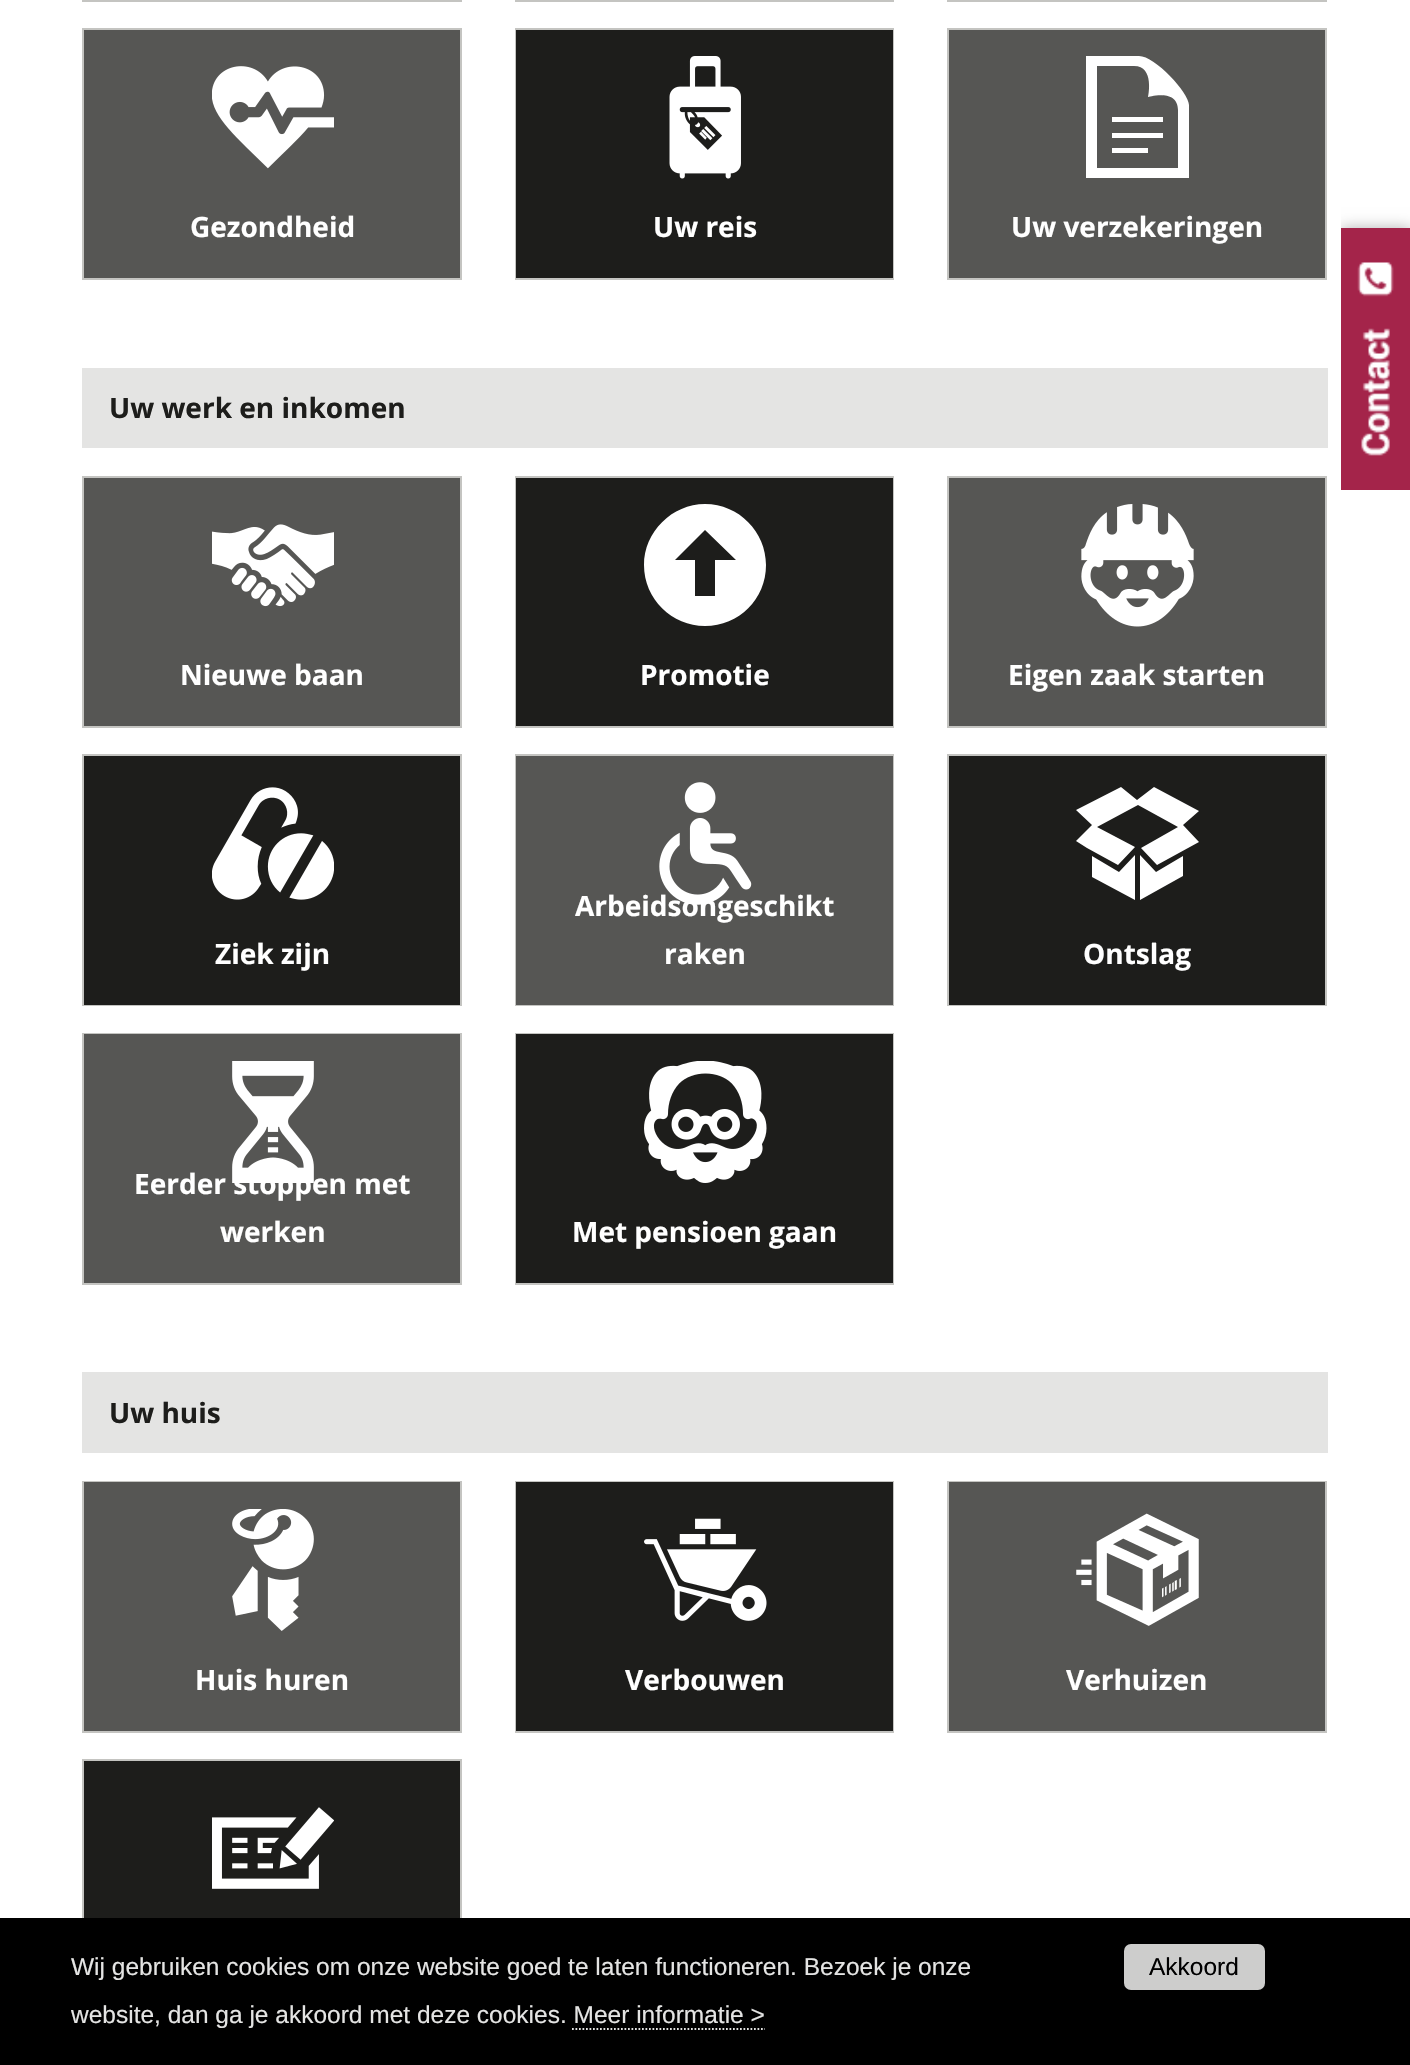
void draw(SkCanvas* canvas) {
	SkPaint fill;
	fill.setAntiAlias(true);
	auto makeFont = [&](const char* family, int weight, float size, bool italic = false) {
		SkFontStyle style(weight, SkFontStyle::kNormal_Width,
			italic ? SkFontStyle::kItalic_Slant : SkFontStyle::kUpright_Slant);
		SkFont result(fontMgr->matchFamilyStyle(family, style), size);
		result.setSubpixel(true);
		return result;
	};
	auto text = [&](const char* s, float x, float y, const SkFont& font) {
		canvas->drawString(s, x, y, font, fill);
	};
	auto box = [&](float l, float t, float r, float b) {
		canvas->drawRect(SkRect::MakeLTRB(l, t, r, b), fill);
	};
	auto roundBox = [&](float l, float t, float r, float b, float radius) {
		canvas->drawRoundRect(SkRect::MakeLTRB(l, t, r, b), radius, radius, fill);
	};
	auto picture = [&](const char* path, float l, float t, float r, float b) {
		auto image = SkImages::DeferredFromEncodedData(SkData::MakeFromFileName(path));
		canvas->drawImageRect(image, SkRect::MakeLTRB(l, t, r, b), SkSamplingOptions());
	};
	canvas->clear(0xFFFFFFFF);
	fill.setStyle(SkPaint::kStroke_Style);
	fill.setStrokeWidth(2);
	fill.setColor(0xFFC4C4C1);
	canvas->drawRect(SkRect::MakeLTRB(83, -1, 461, 1), fill);
	canvas->drawRect(SkRect::MakeLTRB(516, -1, 893, 1), fill);
	canvas->drawRect(SkRect::MakeLTRB(948, -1, 1326, 1), fill);
	canvas->drawRect(SkRect::MakeLTRB(83, 29, 461, 279), fill);
	fill.setStyle(SkPaint::kFill_Style);
	fill.setColor(0xFF565654);
	box(84, 30, 460, 278);
	picture("image0.png", 212, 66, 334, 169);
	fill.setStyle(SkPaint::kStroke_Style);
	fill.setColor(0xFFC4C4C1);
	canvas->drawRect(SkRect::MakeLTRB(516, 29, 893, 279), fill);
	fill.setStyle(SkPaint::kFill_Style);
	fill.setColor(0xFF1D1D1B);
	box(516, 30, 893, 278);
	picture("image1.png", 669, 56, 741, 179);
	fill.setStyle(SkPaint::kStroke_Style);
	fill.setColor(0xFFC4C4C1);
	canvas->drawRect(SkRect::MakeLTRB(948, 29, 1326, 279), fill);
	fill.setStyle(SkPaint::kFill_Style);
	fill.setColor(0xFF565654);
	box(949, 30, 1325, 278);
	fill.setColor(0xFFFFFFFF);
	canvas->drawPath(SkPathBuilder().moveTo(1134, 66).cubicTo(1155, 66, 1148, 97, 1148, 97).cubicTo(1148, 97, 1178, 88, 1178, 110).lineTo(1178, 168).lineTo(1097, 168).lineTo(1097, 66).close().moveTo(1139, 56).lineTo(1086, 56).lineTo(1086, 178).lineTo(1189, 178).lineTo(1189, 105).cubicTo(1189, 93, 1155, 56, 1139, 56).close().moveTo(1163, 122).lineTo(1112, 122).lineTo(1112, 117).lineTo(1163, 117).close().moveTo(1163, 133).lineTo(1112, 133).lineTo(1112, 138).lineTo(1163, 138).close().moveTo(1148, 148).lineTo(1112, 148).lineTo(1112, 153).lineTo(1148, 153).close().detach(), fill);
	fill.setColor(0xFFE4E4E3);
	box(82, 368, 1328, 448);
	fill.setStyle(SkPaint::kStroke_Style);
	fill.setColor(0xFFC4C4C1);
	canvas->drawRect(SkRect::MakeLTRB(83, 477, 461, 727), fill);
	fill.setStyle(SkPaint::kFill_Style);
	fill.setColor(0xFF565654);
	box(84, 478, 460, 726);
	picture("image2.png", 212, 524, 334, 607);
	fill.setStyle(SkPaint::kStroke_Style);
	fill.setColor(0xFFC4C4C1);
	canvas->drawRect(SkRect::MakeLTRB(516, 477, 893, 727), fill);
	fill.setStyle(SkPaint::kFill_Style);
	fill.setColor(0xFF1D1D1B);
	box(516, 478, 893, 726);
	fill.setColor(0xFFFFFFFF);
	canvas->drawPath(SkPathBuilder().moveTo(644, 565).cubicTo(644, 599, 672, 626, 705, 626).cubicTo(739, 626, 766, 599, 766, 565).cubicTo(766, 532, 739, 504, 705, 504).cubicTo(672, 504, 644, 532, 644, 565).close().moveTo(736, 560).lineTo(715, 560).lineTo(715, 596).lineTo(695, 596).lineTo(695, 560).lineTo(675, 560).lineTo(705, 530).close().detach(), fill);
	fill.setStyle(SkPaint::kStroke_Style);
	fill.setColor(0xFFC4C4C1);
	canvas->drawRect(SkRect::MakeLTRB(948, 477, 1326, 727), fill);
	fill.setStyle(SkPaint::kFill_Style);
	fill.setColor(0xFF565654);
	box(949, 478, 1325, 726);
	picture("image3.png", 1081, 504, 1194, 627);
	fill.setStyle(SkPaint::kStroke_Style);
	fill.setColor(0xFFC4C4C1);
	canvas->drawRect(SkRect::MakeLTRB(83, 755, 461, 1005), fill);
	fill.setStyle(SkPaint::kFill_Style);
	fill.setColor(0xFF1D1D1B);
	box(84, 756, 460, 1005);
	picture("image4.png", 212, 787, 334, 900);
	fill.setStyle(SkPaint::kStroke_Style);
	fill.setColor(0xFFC4C4C1);
	canvas->drawRect(SkRect::MakeLTRB(516, 755, 893, 1005), fill);
	fill.setStyle(SkPaint::kFill_Style);
	fill.setColor(0xFF565654);
	box(516, 756, 893, 1005);
	picture("image5.png", 659, 782, 752, 905);
	fill.setStyle(SkPaint::kStroke_Style);
	fill.setColor(0xFFC4C4C1);
	canvas->drawRect(SkRect::MakeLTRB(948, 755, 1326, 1005), fill);
	fill.setStyle(SkPaint::kFill_Style);
	fill.setColor(0xFF1D1D1B);
	box(949, 756, 1325, 1005);
	fill.setColor(0xFFFFFFFF);
	canvas->drawPath(SkPathBuilder(SkPathFillType::kEvenOdd).moveTo(1135, 900).lineTo(1092, 877).lineTo(1092, 856).lineTo(1119, 872).lineTo(1135, 855).close().moveTo(1140, 900).lineTo(1140, 855).lineTo(1156, 872).lineTo(1183, 856).lineTo(1183, 876).close().moveTo(1087, 848).lineTo(1076, 841).lineTo(1092, 825).lineTo(1076, 810).lineTo(1121, 787).lineTo(1137, 800).lineTo(1154, 787).lineTo(1199, 811).lineTo(1183, 825).lineTo(1199, 842).lineTo(1157, 865).lineTo(1141, 848).lineTo(1178, 827).lineTo(1138, 805).lineTo(1097, 827).lineTo(1135, 847).lineTo(1118, 865).close().detach(), fill);
	fill.setStyle(SkPaint::kStroke_Style);
	fill.setColor(0xFFC4C4C1);
	canvas->drawRect(SkRect::MakeLTRB(83, 1034, 461, 1284), fill);
	fill.setStyle(SkPaint::kFill_Style);
	fill.setColor(0xFF565654);
	box(84, 1034, 460, 1283);
	picture("image6.png", 232, 1061, 314, 1183);
	fill.setStyle(SkPaint::kStroke_Style);
	fill.setColor(0xFFC4C4C1);
	canvas->drawRect(SkRect::MakeLTRB(516, 1034, 893, 1284), fill);
	fill.setStyle(SkPaint::kFill_Style);
	fill.setColor(0xFF1D1D1B);
	box(516, 1034, 893, 1283);
	picture("image7.png", 644, 1061, 767, 1183);
	fill.setColor(0xFFE4E4E3);
	box(82, 1372, 1328, 1453);
	fill.setStyle(SkPaint::kStroke_Style);
	fill.setColor(0xFFC4C4C1);
	canvas->drawRect(SkRect::MakeLTRB(83, 1482, 461, 1732), fill);
	fill.setStyle(SkPaint::kFill_Style);
	fill.setColor(0xFF565654);
	box(84, 1482, 460, 1731);
	picture("image8.png", 232, 1509, 314, 1631);
	fill.setStyle(SkPaint::kStroke_Style);
	fill.setColor(0xFFC4C4C1);
	canvas->drawRect(SkRect::MakeLTRB(516, 1482, 893, 1732), fill);
	fill.setStyle(SkPaint::kFill_Style);
	fill.setColor(0xFF1D1D1B);
	box(516, 1482, 893, 1731);
	picture("image9.png", 644, 1518, 767, 1621);
	fill.setStyle(SkPaint::kStroke_Style);
	fill.setColor(0xFFC4C4C1);
	canvas->drawRect(SkRect::MakeLTRB(948, 1482, 1326, 1732), fill);
	fill.setStyle(SkPaint::kFill_Style);
	fill.setColor(0xFF565654);
	box(949, 1482, 1325, 1731);
	picture("image10.png", 1076, 1513, 1199, 1626);
	fill.setStyle(SkPaint::kStroke_Style);
	fill.setColor(0xFFC4C4C1);
	canvas->drawRect(SkRect::MakeLTRB(83, 1760, 461, 2010), fill);
	fill.setStyle(SkPaint::kFill_Style);
	fill.setColor(0xFF1D1D1B);
	box(84, 1761, 460, 1918);
	picture("image11.png", 212, 1807, 334, 1889);
	canvas->save();
	canvas->clipRect(SkRect::MakeLTRB(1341, 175, 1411, 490));
	fill.setColor(0x4D000000);
	fill.setMaskFilter(SkMaskFilter::MakeBlur(kNormal_SkBlurStyle, 7));
	canvas->drawRect(SkRect::MakeLTRB(1341, 228, 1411, 490), fill);
	fill.setMaskFilter(nullptr);
	canvas->restore();
	fill.setColor(0xFFA4244A);
	box(1341, 228, 1410, 490);
	picture("image12.png", 1357, 262, 1394, 456);
	fill.setColor(0xFF000000);
	box(0, 1918, 1410, 2065);
	fill.setStyle(SkPaint::kStroke_Style);
	fill.setStrokeWidth(1.8f);
	fill.setColor(0xFFE4E4E3);
	fill.setPathEffect(SkDashPathEffect::Make({{1.75f, 1.75f}}, 0));
	canvas->drawPath(SkPathBuilder().moveTo(572, 2029).lineTo(765, 2029).detach(), fill);
	fill.setPathEffect(nullptr);
	fill.setStyle(SkPaint::kFill_Style);
	fill.setColor(0xFFCDCDCC);
	roundBox(1124, 1944, 1265, 1990, 7);
	auto font1 = makeFont("Open Sans", 700, 28);
	fill.setColor(0xFFFFFFFF);
	text("Gezondheid", 190, 237, font1);
	text("Uw reis", 653, 237, font1);
	text("Uw verzekeringen", 1011, 237, font1);
	fill.setColor(0xFF1D1D1B);
	text("Uw werk en inkomen", 109, 418, font1);
	fill.setColor(0xFFFFFFFF);
	text("Nieuwe baan", 180, 685, font1);
	text("Promotie", 640, 685, font1);
	text("Eigen zaak starten", 1008, 685, font1);
	text("Ziek zijn", 215, 964, font1);
	text("Arbeidsongeschikt", 575, 916, font1);
	text("raken", 664, 964, font1);
	text("Ontslag", 1083, 964, font1);
	text("Eerder stoppen met", 134, 1194, font1);
	text("werken", 220, 1242, font1);
	text("Met pensioen gaan", 572, 1242, font1);
	fill.setColor(0xFF1D1D1B);
	text("Uw huis", 109, 1423, font1);
	fill.setColor(0xFFFFFFFF);
	text("Huis huren", 195, 1690, font1);
	text("Verbouwen", 625, 1690, font1);
	text("Verhuizen", 1066, 1690, font1);
	auto font2 = makeFont("Liberation Sans", 400, 24.5f);
	fill.setColor(0xFFE4E4E3);
	text("Wij gebruiken cookies om onze website goed te laten functioneren. Bezoek je onze", 71, 1975, font2);
	text("website, dan ga je akkoord met deze cookies. Meer informatie >", 71, 2023, font2);
	fill.setColor(0xFF000000);
	text("Akkoord", 1149, 1975, font2);
}
